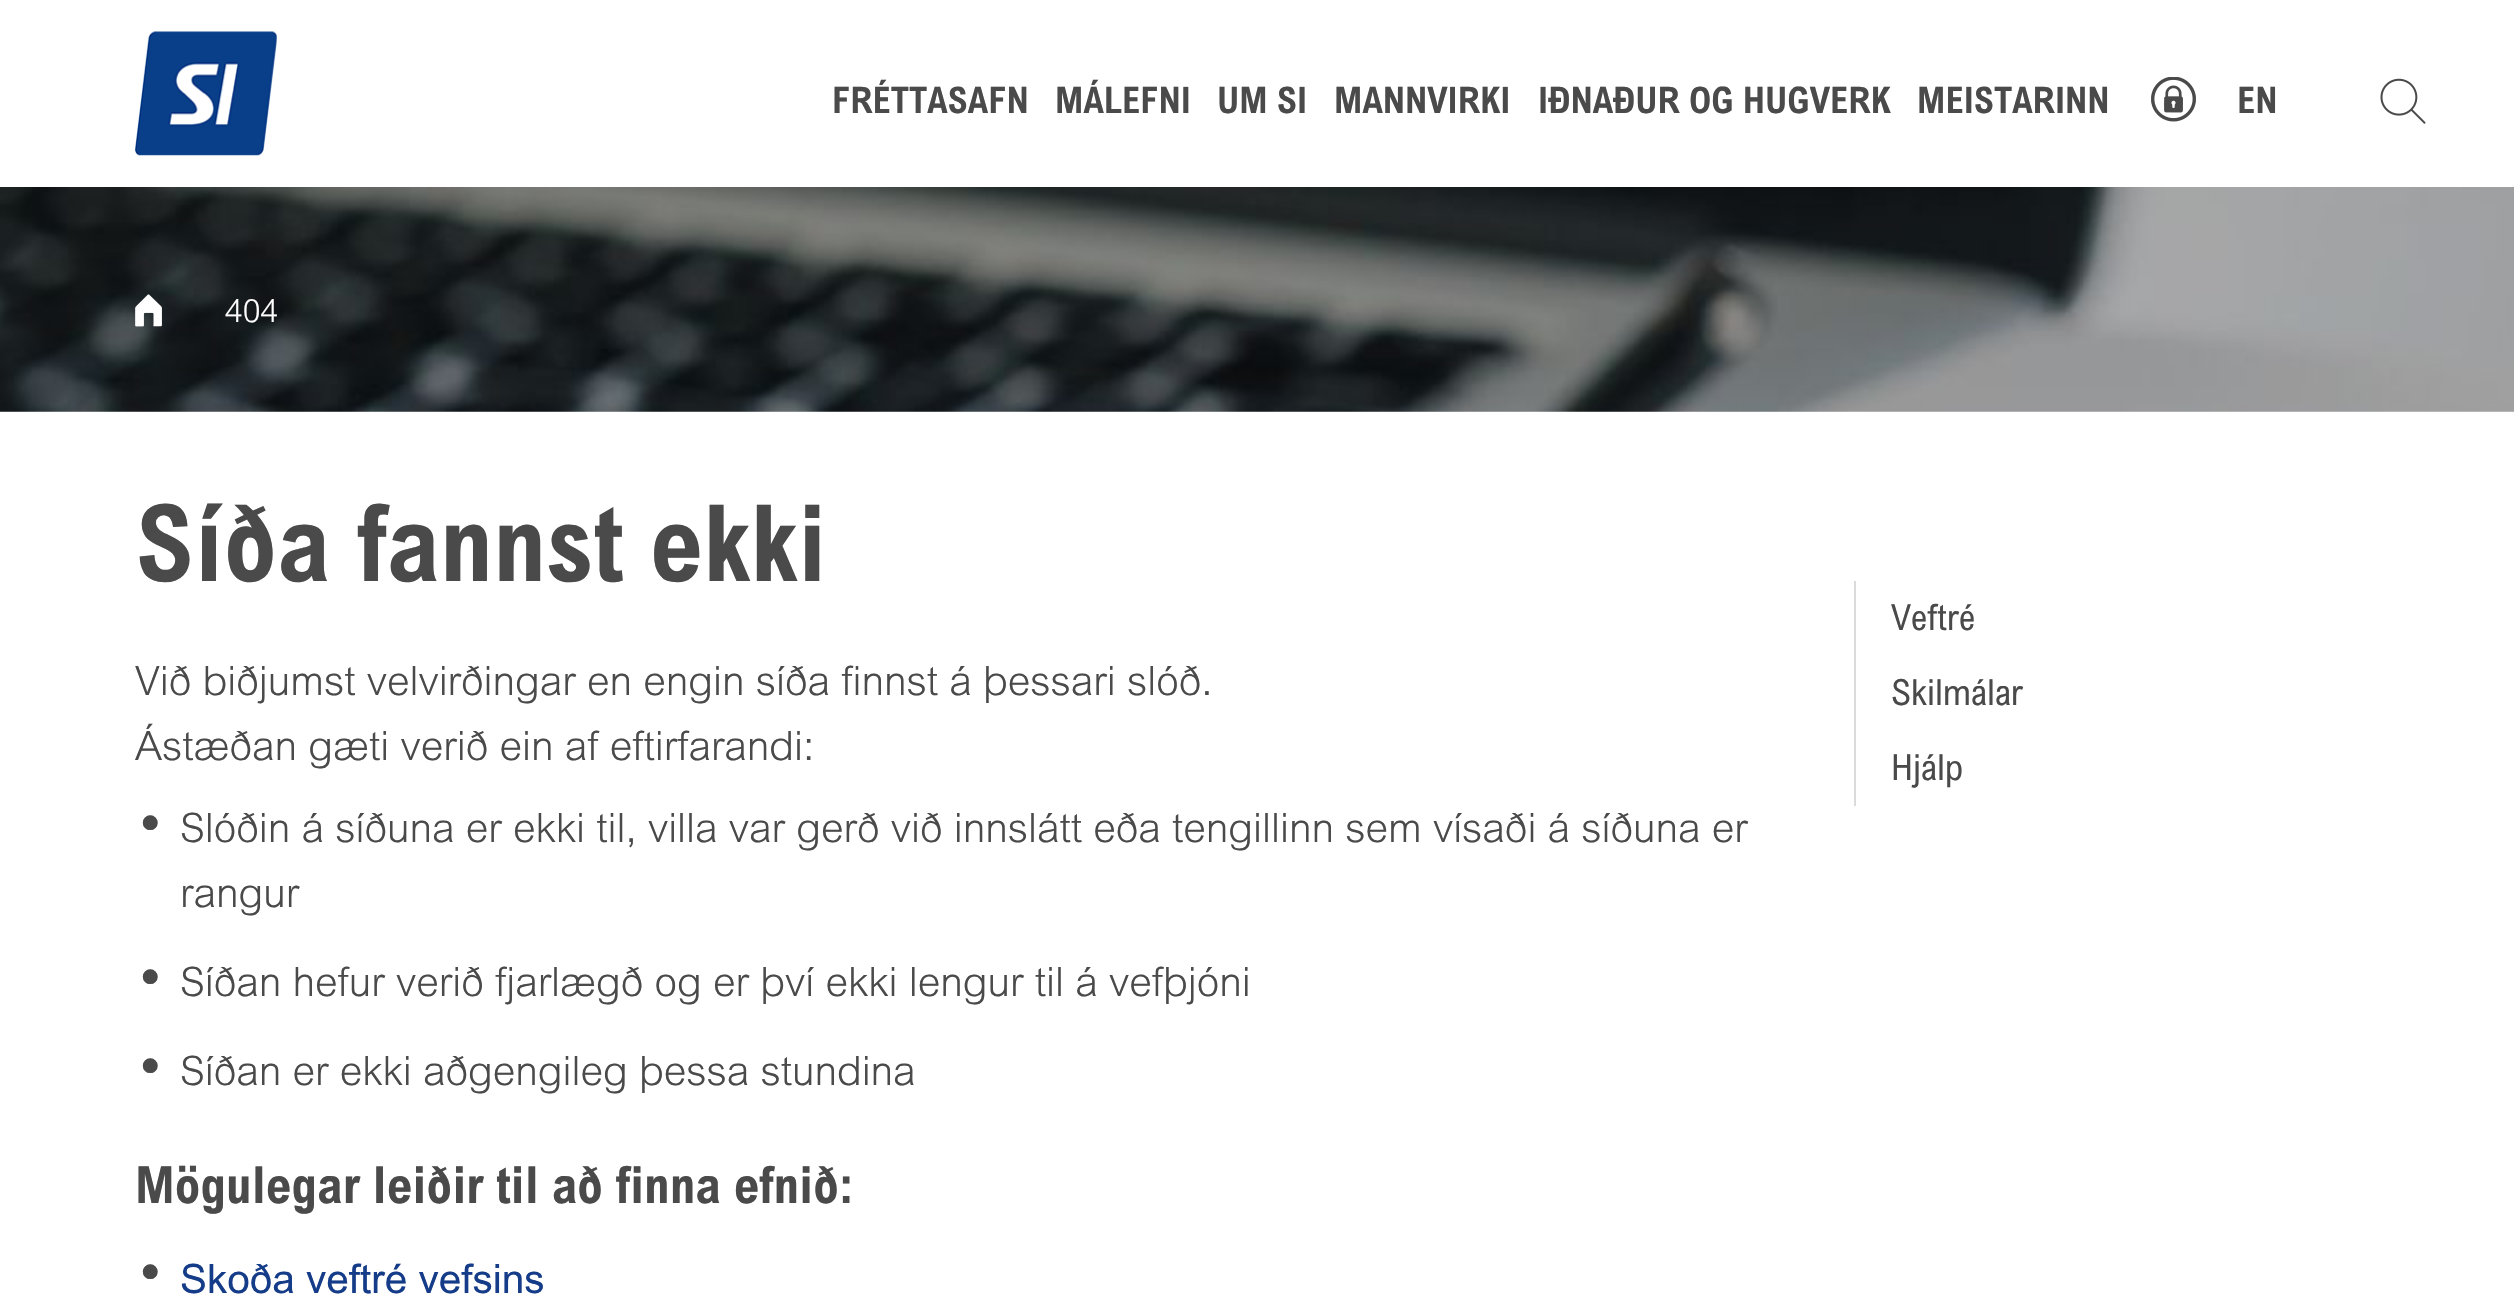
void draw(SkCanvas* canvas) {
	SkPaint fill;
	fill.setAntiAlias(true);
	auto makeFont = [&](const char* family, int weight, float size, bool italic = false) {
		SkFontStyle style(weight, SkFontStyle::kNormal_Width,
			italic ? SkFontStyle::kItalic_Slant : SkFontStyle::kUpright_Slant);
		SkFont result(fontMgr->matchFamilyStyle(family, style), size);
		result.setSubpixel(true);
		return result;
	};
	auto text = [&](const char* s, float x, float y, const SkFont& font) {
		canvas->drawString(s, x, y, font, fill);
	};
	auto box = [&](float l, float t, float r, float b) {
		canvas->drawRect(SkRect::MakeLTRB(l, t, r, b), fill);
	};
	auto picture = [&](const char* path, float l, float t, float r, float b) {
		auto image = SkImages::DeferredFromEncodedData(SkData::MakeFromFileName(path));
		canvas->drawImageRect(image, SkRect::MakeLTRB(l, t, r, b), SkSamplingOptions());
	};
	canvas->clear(0xFFFFFFFF);
	picture("image0.png", 135, 31, 277, 156);
	picture("image1.png", 2151, 77, 2196, 122);
	picture("image2.png", 2380, 78, 2426, 124);
	picture("image4.png", 0, 187, 2514, 412);
	picture("image3.png", 135, 294, 162, 327);
	fill.setColor(0xFFDBDBDB);
	box(1854, 581, 1856, 806);
	auto font1 = makeFont("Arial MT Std", 700, 36.5f);
	fill.setColor(0xFF4A4A4A);
	text("FRÉTTASAFN", 832, 113, font1);
	text("MÁLEFNI", 1055, 113, font1);
	text("UM SI", 1217, 113, font1);
	text("MANNVIRKI", 1334, 113, font1);
	text("IÐNAÐUR OG HUGVERK", 1538, 113, font1);
	text("MEISTARINN", 1917, 113, font1);
	text("EN", 2237, 113, font1);
	auto font2 = makeFont("Arial MT Std", 300, 32);
	fill.setColor(0xFFFFFFFF);
	text("404", 225, 322, font2);
	auto font3 = makeFont("Arial MT Std", 700, 106.5f);
	fill.setColor(0xFF4A4A4A);
	text("Síða fannst ekki", 135, 581, font3);
	auto font4 = makeFont("Arial MT Std", 300, 40.5f);
	text("Við biðjumst velvirðingar en engin síða finnst á þessari slóð.", 135, 695, font4);
	text("Ástæðan gæti verið ein af eftirfarandi:", 135, 760, font4);
	auto font5 = makeFont("Arial MT Std", 300, 61);
	text("•", 135, 844, font5);
	text("Slóðin á síðuna er ekki til, villa var gerð við innslátt eða tengillinn sem vísaði á síðuna er", 180, 842, font4);
	text("rangur", 180, 907, font4);
	text("•", 135, 998, font5);
	text("Síðan hefur verið fjarlægð og er því ekki lengur til á vefþjóni", 180, 996, font4);
	text("•", 135, 1087, font5);
	text("Síðan er ekki aðgengileg þessa stundina", 180, 1085, font4);
	auto font6 = makeFont("Arial MT Std", 700, 51.2f);
	text("Mögulegar leiðir til að finna efnið:", 135, 1203, font6);
	text("•", 135, 1293, font5);
	auto font7 = makeFont("Arial MT Std", 400, 40.5f);
	fill.setColor(0xFF153C88);
	text("Skoða veftré vefsins", 180, 1293, font7);
	auto font8 = makeFont("Arial MT Std", 500, 36);
	fill.setColor(0xFF4A4A4A);
	text("Veftré", 1891, 630, font8);
	text("Skilmálar", 1891, 705, font8);
	text("Hjálp", 1891, 780, font8);
}
